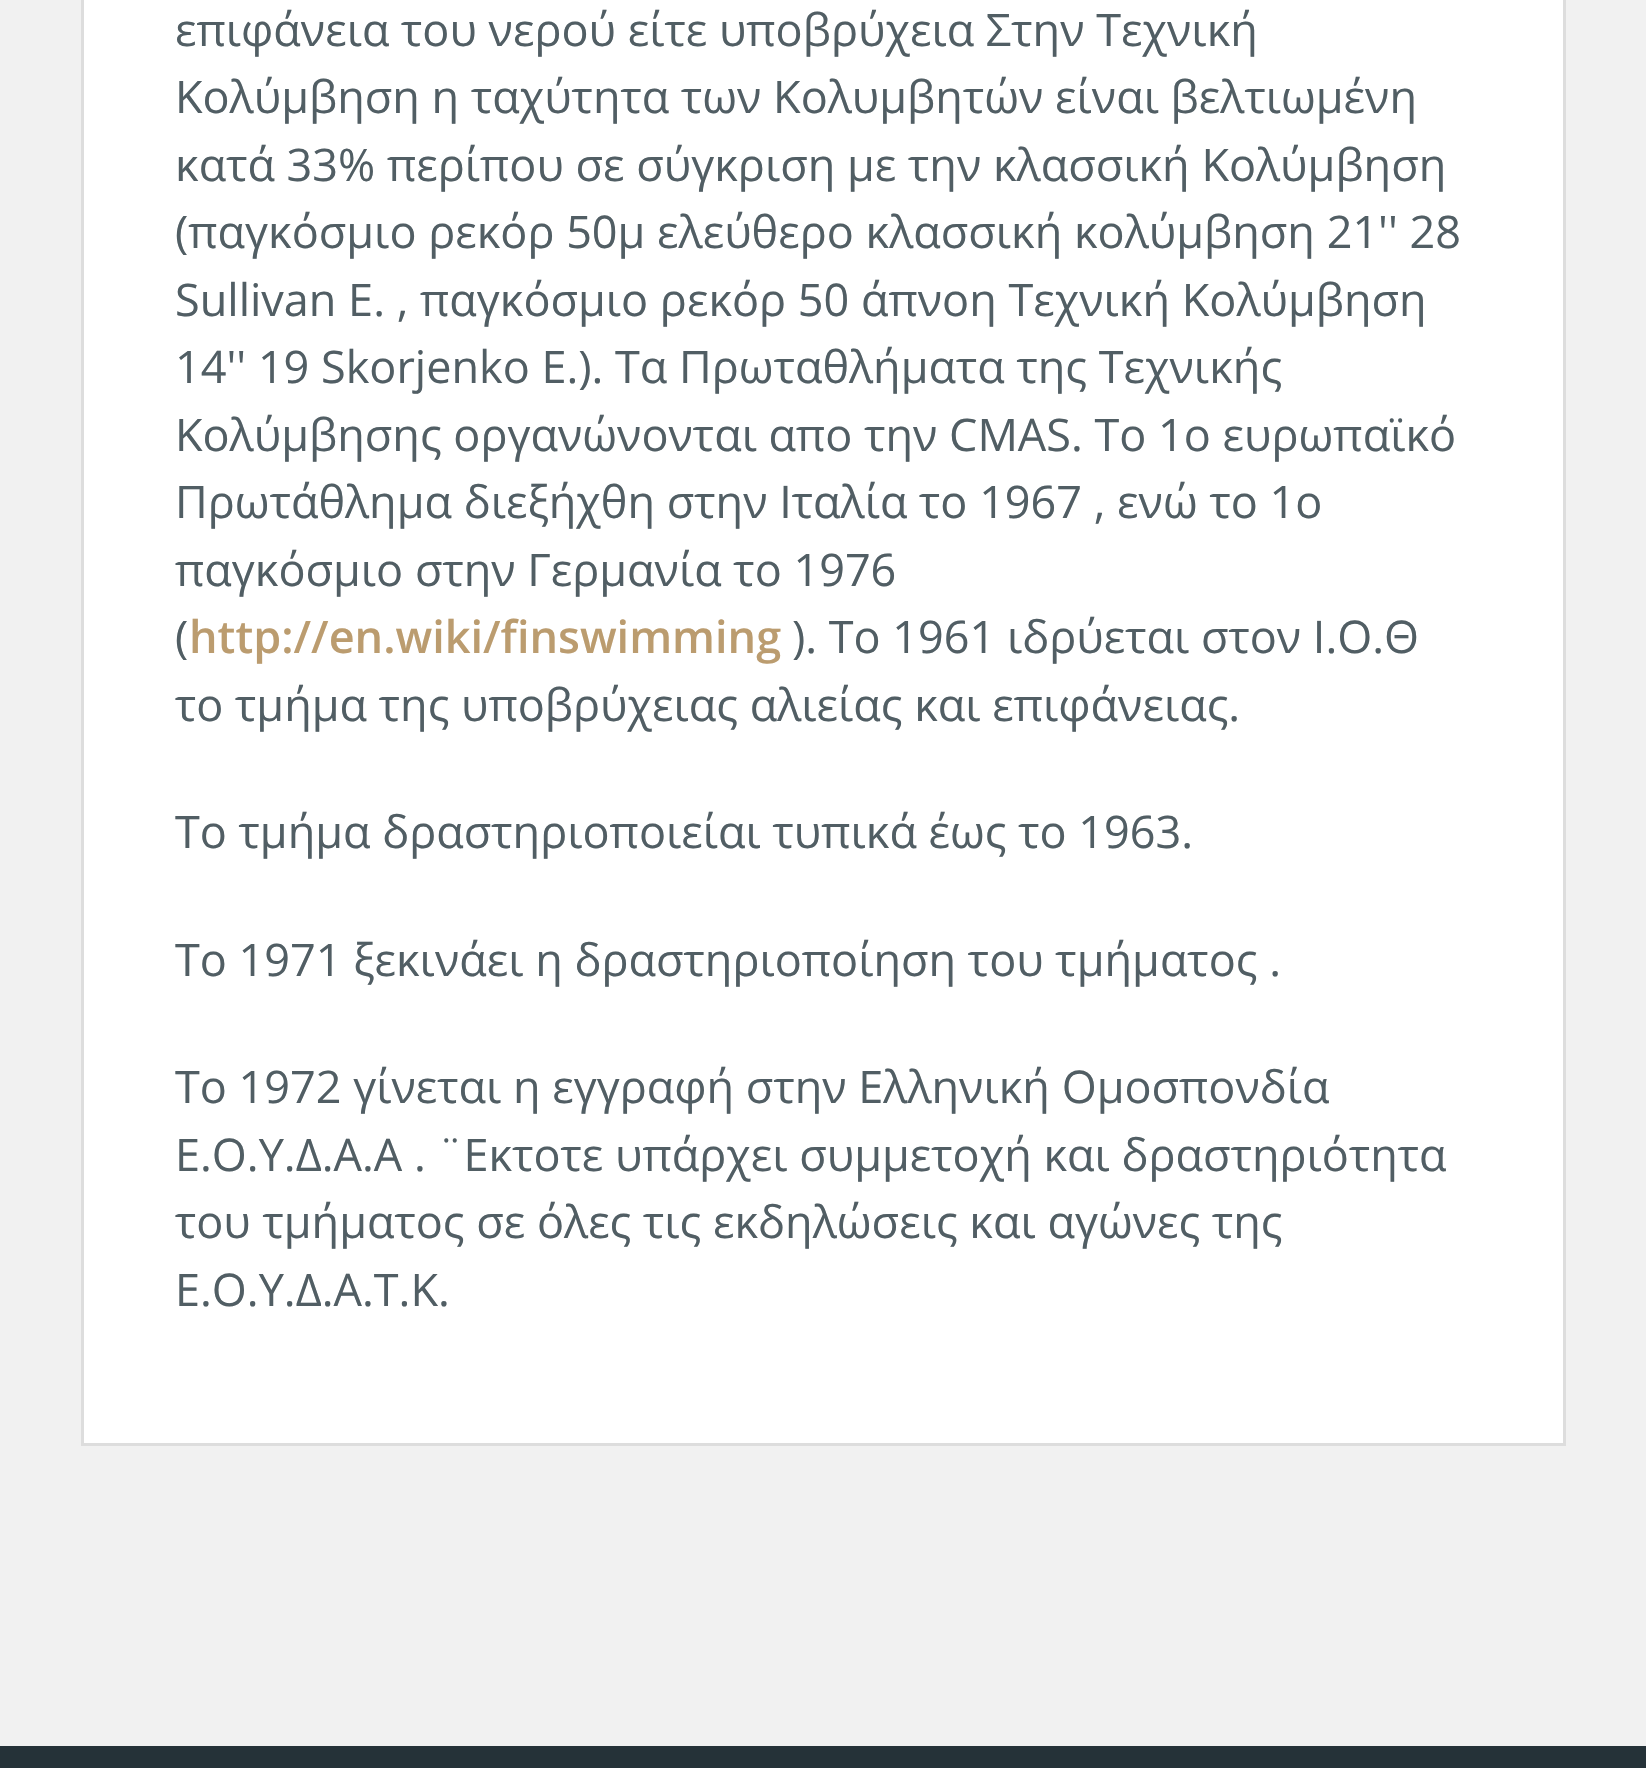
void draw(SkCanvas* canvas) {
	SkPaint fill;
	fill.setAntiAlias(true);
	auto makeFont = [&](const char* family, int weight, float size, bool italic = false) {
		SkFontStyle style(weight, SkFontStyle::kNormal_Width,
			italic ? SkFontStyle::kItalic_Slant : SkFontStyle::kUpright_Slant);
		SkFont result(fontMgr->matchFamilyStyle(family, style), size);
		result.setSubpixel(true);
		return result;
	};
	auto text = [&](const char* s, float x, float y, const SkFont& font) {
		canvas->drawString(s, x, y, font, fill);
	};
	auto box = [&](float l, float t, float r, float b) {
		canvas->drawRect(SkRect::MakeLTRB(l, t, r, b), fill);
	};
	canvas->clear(0xFFF1F1F1);
	fill.setColor(0xFFFFFFFF);
	canvas->drawRect(SkRect::MakeLTRB(82.5f, -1.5f, 1564.5f, 1444.5f), fill);
	fill.setStyle(SkPaint::kStroke_Style);
	fill.setStrokeWidth(3);
	fill.setColor(0xFFDDDDDD);
	canvas->drawRect(SkRect::MakeLTRB(82.5f, -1.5f, 1564.5f, 1444.5f), fill);
	fill.setStyle(SkPaint::kFill_Style);
	fill.setColor(0xFF253238);
	box(0, 1746, 1646, 1768);
	auto font1 = makeFont("Open Sans", 400, 45);
	fill.setColor(0xFF515E64);
	text("επιφάνεια του νερού είτε υποβρύχεια Στην Τεχνική", 175, 46, font1);
	text("Κολύμβηση η ταχύτητα των Κολυμβητών είναι βελτιωμένη", 175, 113, font1);
	text("κατά 33% περίπου σε σύγκριση με την κλασσική Κολύμβηση", 175, 181, font1);
	text("(παγκόσμιο ρεκόρ 50μ ελεύθερο κλασσική κολύμβηση 21'' 28", 175, 248, font1);
	text("Sullivan E. , παγκόσμιο ρεκόρ 50 άπνοη Τεχνική Κολύμβηση", 175, 316, font1);
	text("14'' 19 Skorjenko E.). Τα Πρωταθλήματα της Τεχνικής", 175, 383, font1);
	text("Κολύμβησης οργανώνονται απο την CMAS. Το 1ο ευρωπαϊκό", 175, 451, font1);
	text("Πρωτάθλημα διεξήχθη στην Ιταλία το 1967 , ενώ το 1ο", 175, 518, font1);
	text("παγκόσμιο στην Γερμανία το 1976", 175, 586, font1);
	text("(", 175, 653, font1);
	auto font2 = makeFont("Open Sans", 600, 45);
	fill.setColor(0xFFBB9C6F);
	text("http://en.wiki/finswimming", 189, 653, font2);
	fill.setColor(0xFF515E64);
	text("). Το 1961 ιδρύεται στον Ι.Ο.Θ", 792, 653, font1);
	text("το τμήμα της υποβρύχειας αλιείας και επιφάνειας.", 175, 721, font1);
	text("Το τμήμα δραστηριοποιείαι τυπικά έως το 1963.", 175, 848, font1);
	text("Το 1971 ξεκινάει η δραστηριοποίηση του τμήματος .", 175, 976, font1);
	text("Το 1972 γίνεται η εγγραφή στην Ελληνική Ομοσπονδία", 175, 1103, font1);
	text("Ε.Ο.Υ.Δ.Α.Α . ¨Εκτοτε υπάρχει συμμετοχή και δραστηριότητα", 175, 1171, font1);
	text("του τμήματος σε όλες τις εκδηλώσεις και αγώνες της", 175, 1238, font1);
	text("Ε.Ο.Υ.Δ.Α.Τ.Κ.", 175, 1306, font1);
}
